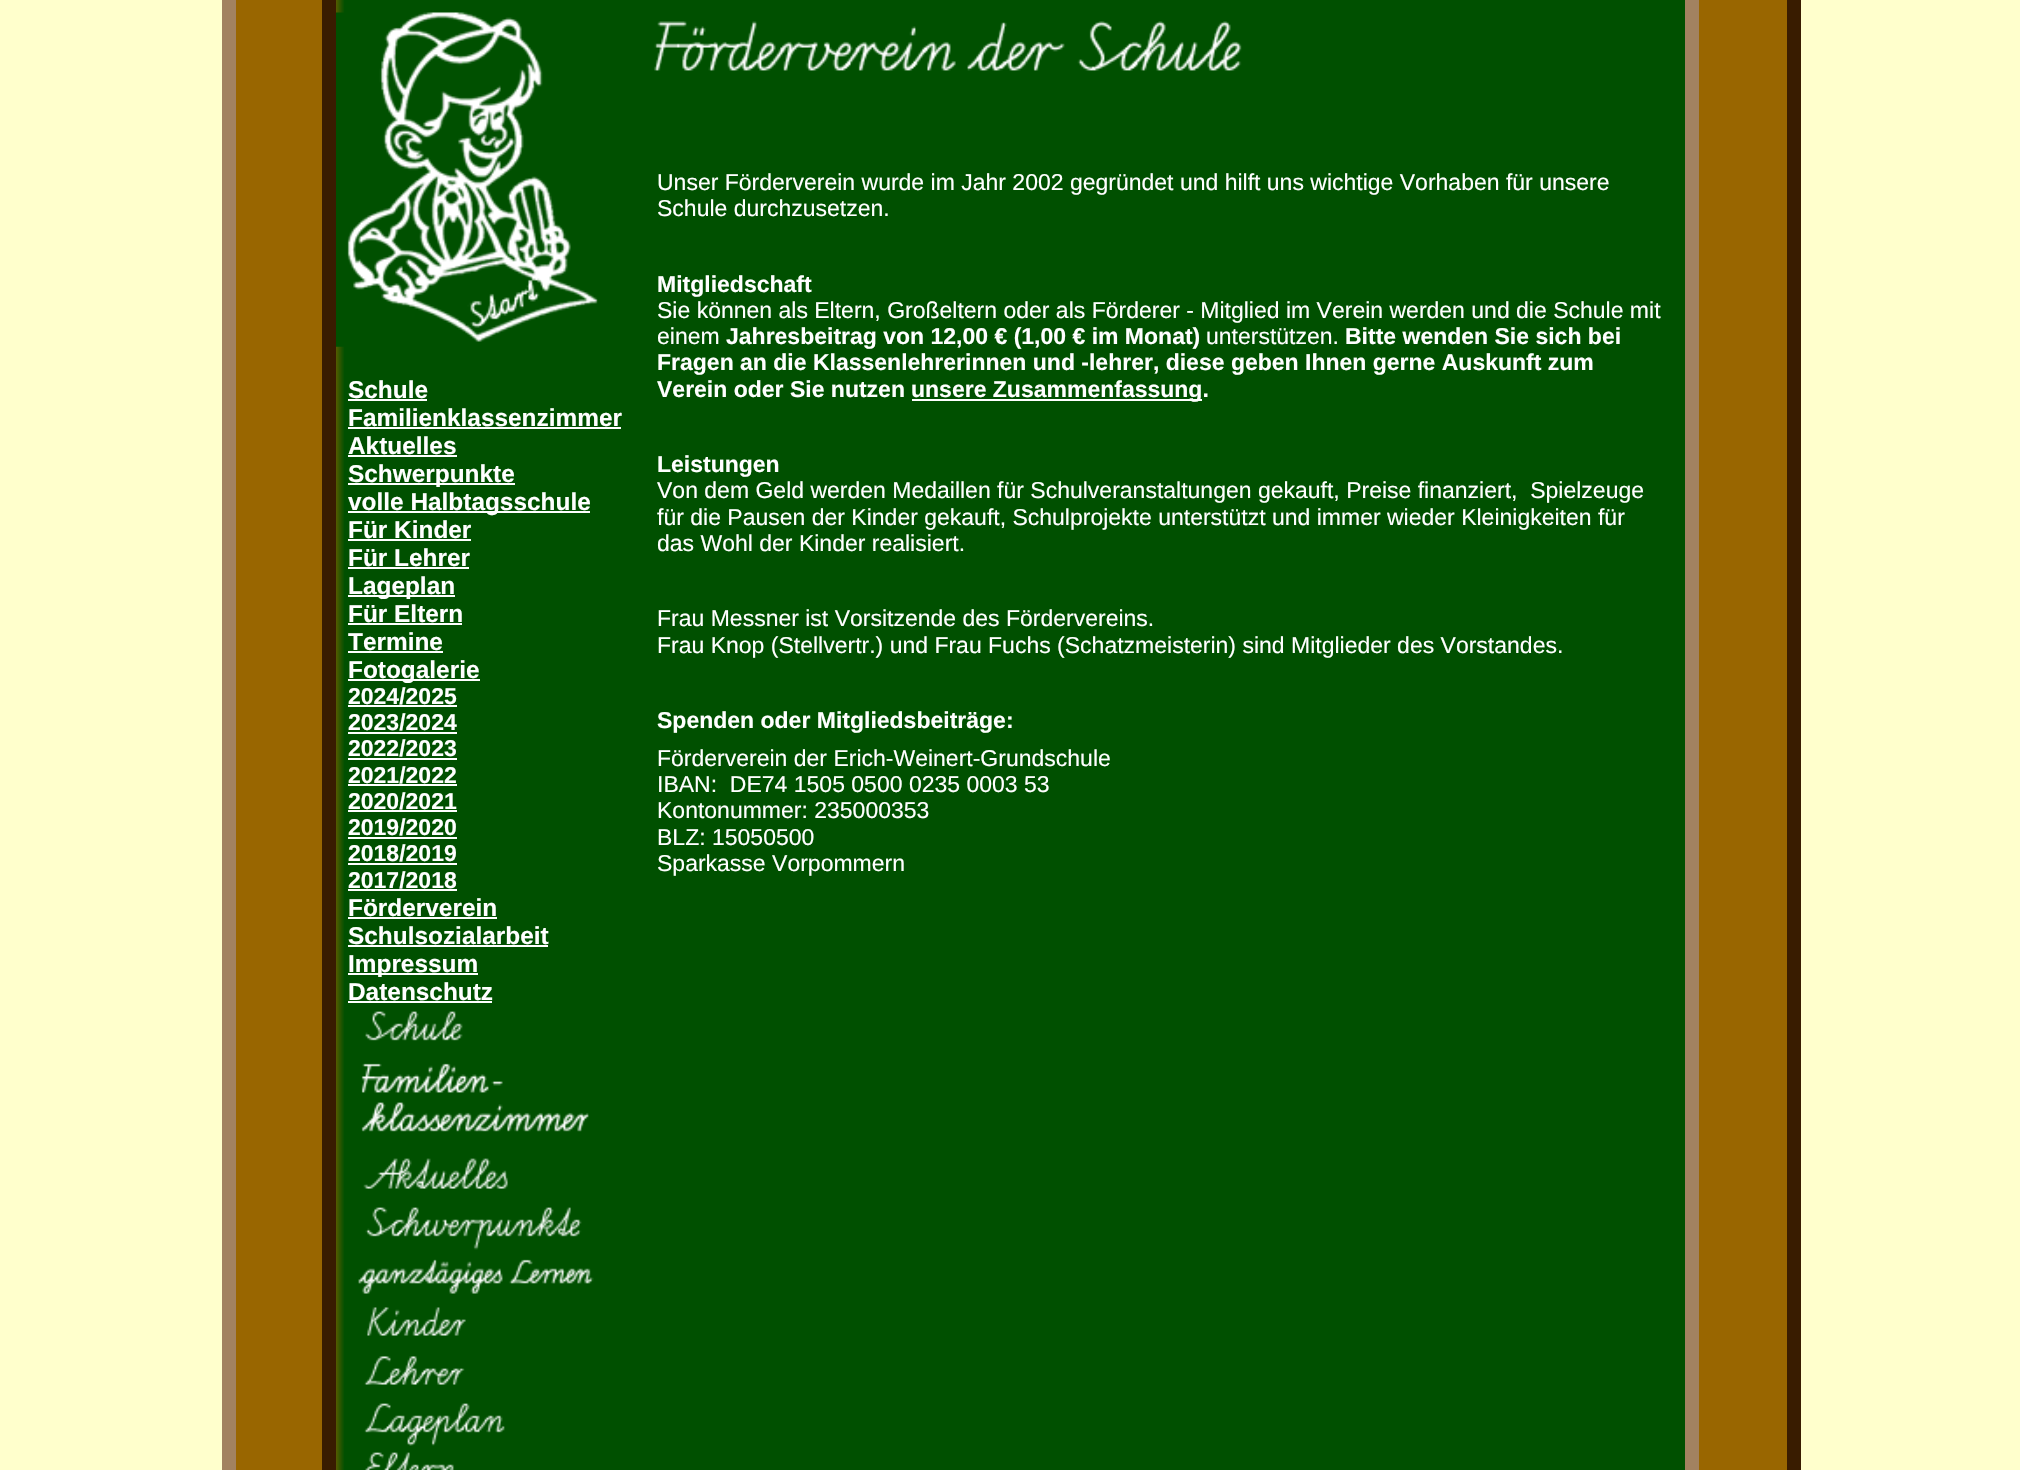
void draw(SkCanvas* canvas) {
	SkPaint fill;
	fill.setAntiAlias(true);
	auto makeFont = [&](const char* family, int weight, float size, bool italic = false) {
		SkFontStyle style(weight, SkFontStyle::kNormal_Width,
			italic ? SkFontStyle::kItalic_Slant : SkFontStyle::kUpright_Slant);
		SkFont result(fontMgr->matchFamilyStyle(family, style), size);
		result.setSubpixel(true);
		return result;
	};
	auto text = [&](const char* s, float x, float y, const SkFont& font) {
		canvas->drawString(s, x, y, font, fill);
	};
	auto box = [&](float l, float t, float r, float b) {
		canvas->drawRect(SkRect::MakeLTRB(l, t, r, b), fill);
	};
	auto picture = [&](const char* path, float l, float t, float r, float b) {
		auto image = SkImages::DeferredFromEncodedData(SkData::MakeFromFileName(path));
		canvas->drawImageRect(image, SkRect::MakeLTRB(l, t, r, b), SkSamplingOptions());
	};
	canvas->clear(0xFFFFFFCC);
	{
		const SkColor colors[] = {0xFF996600, 0xFF996600, 0xFF005000, 0xFF005000, 0xFF996600, 0xFF996600};
		const float stops[] = {0, 0.06f, 0.07f, 0.94f, 0.94f, 1};
		const SkPoint ends[] = {{236, 896}, {1787, 896}};
		fill.setShader(SkGradientShader::MakeLinear(ends, colors, stops, 6, SkTileMode::kClamp));
		fill.setAlpha(255);
	}
	box(236, 0, 1787, 1470);
	fill.setShader(nullptr);
	fill.setColor(0xFF391C00);
	box(1787, 0, 1801, 1470);
	fill.setColor(0xFFA28260);
	box(222, 0, 236, 1470);
	canvas->drawPath(SkPathBuilder().moveTo(1699, -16).lineTo(1699, 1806).lineTo(1685, 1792).lineTo(1685, -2).close().detach(), fill);
	fill.setColor(0xFF391C00);
	canvas->drawPath(SkPathBuilder().moveTo(322, 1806).lineTo(322, -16).lineTo(336, -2).lineTo(336, 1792).close().detach(), fill);
	picture("image0.png", 336, 12, 598, 347);
	fill.setColor(0xFFFFFFFF);
	box(348, 399, 427, 401);
	box(348, 427, 621, 429);
	box(348, 455, 457, 457);
	box(348, 483, 515, 485);
	box(348, 511, 590, 513);
	box(348, 539, 471, 541);
	box(348, 567, 469, 569);
	box(348, 595, 455, 597);
	box(348, 623, 462, 625);
	box(348, 651, 443, 653);
	box(348, 679, 480, 681);
	box(348, 705, 457, 707);
	box(348, 732, 457, 734);
	box(348, 758, 457, 760);
	box(348, 784, 457, 786);
	box(348, 810, 457, 812);
	box(348, 837, 457, 839);
	box(348, 863, 457, 865);
	box(348, 889, 457, 891);
	box(348, 917, 497, 919);
	box(348, 945, 548, 947);
	box(348, 973, 478, 975);
	box(348, 1001, 492, 1003);
	picture("image1.png", 365, 1011, 463, 1041);
	picture("image2.png", 361, 1063, 589, 1132);
	picture("image3.png", 363, 1158, 508, 1189);
	picture("image4.png", 365, 1207, 582, 1250);
	picture("image5.png", 358, 1259, 594, 1294);
	picture("image6.png", 367, 1307, 466, 1336);
	picture("image7.png", 364, 1356, 465, 1385);
	picture("image8.png", 364, 1403, 505, 1446);
	picture("image9.png", 365, 1445, 454, 1470);
	picture("image10.png", 654, 21, 1242, 71);
	box(912, 399, 1202, 401);
	auto font1 = makeFont("Liberation Sans", 700, 24.4f);
	text("Schule", 348, 398, font1);
	text("Familienklassenzimmer", 348, 426, font1);
	text("Aktuelles", 348, 454, font1);
	text("Schwerpunkte", 348, 482, font1);
	text("volle Halbtagsschule", 348, 510, font1);
	fill.setColor(0xFF005000);
	box(436, 487, 440, 488);
	fill.setColor(0xFFFFFFFF);
	text("Für Kinder", 348, 538, font1);
	text("Für Lehrer", 348, 566, font1);
	text("Lageplan", 348, 594, font1);
	text("Für Eltern", 348, 622, font1);
	fill.setColor(0xFF005000);
	box(382, 599, 410, 600);
	fill.setColor(0xFFFFFFFF);
	text("Termine", 348, 650, font1);
	text("Fotogalerie", 348, 678, font1);
	auto font2 = makeFont("Liberation Sans", 700, 23);
	text("2024/2025", 348, 704, font2);
	fill.setColor(0xFF005000);
	box(406, 683, 409, 684);
	fill.setColor(0xFFFFFFFF);
	text("2023/2024", 348, 730, font2);
	text("2022/2023", 348, 756, font2);
	text("2021/2022", 348, 783, font2);
	text("2020/2021", 348, 809, font2);
	text("2019/2020", 348, 835, font2);
	text("2018/2019", 348, 861, font2);
	text("2017/2018", 348, 888, font2);
	text("Förderverein", 348, 916, font1);
	text("Schulsozialarbeit", 348, 944, font1);
	text("Impressum", 348, 972, font1);
	text("Datenschutz", 348, 1000, font1);
	fill.setColor(0xFF005000);
	box(377, 977, 381, 978);
	auto font3 = makeFont("Liberation Sans", 400, 23);
	fill.setColor(0xFFFFFFFF);
	text("Unser Förderverein wurde im Jahr 2002 gegründet und hilft uns wichtige Vorhaben für unsere", 657, 190, font3);
	text("Schule durchzusetzen.", 657, 216, font3);
	text("Mitgliedschaft", 657, 292, font2);
	text("Sie können als Eltern, Großeltern oder als Förderer - Mitglied im Verein werden und die Schule mit", 657, 318, font3);
	text("einem", 657, 344, font3);
	text("Jahresbeitrag von 12,00 € (1,00 € im Monat)", 726, 344, font2);
	text("unterstützen.", 1206, 344, font3);
	text("Bitte wenden Sie sich bei", 1345, 344, font2);
	text("Fragen an die Klassenlehrerinnen und -lehrer, diese geben Ihnen gerne Auskunft zum", 657, 370, font2);
	text("Verein oder Sie nutzen", 657, 397, font2);
	text("unsere Zusammenfassung.", 911, 397, font2);
	text("Leistungen", 657, 472, font2);
	text("Von dem Geld werden Medaillen für Schulveranstaltungen gekauft, Preise finanziert,  Spielzeuge", 657, 498, font3);
	text("für die Pausen der Kinder gekauft, Schulprojekte unterstützt und immer wieder Kleinigkeiten für", 657, 525, font3);
	text("das Wohl der Kinder realisiert.", 657, 551, font3);
	text("Frau Messner ist Vorsitzende des Fördervereins.", 657, 626, font3);
	text("Frau Knop (Stellvertr.) und Frau Fuchs (Schatzmeisterin) sind Mitglieder des Vorstandes.", 657, 653, font3);
	text("Spenden oder Mitgliedsbeiträge:", 657, 728, font2);
	text("Förderverein der Erich-Weinert-Grundschule", 657, 766, font3);
	text("IBAN:  DE74 1505 0500 0235 0003 53", 657, 792, font3);
	text("Kontonummer: 235000353", 657, 818, font3);
	text("BLZ: 15050500", 657, 845, font3);
	text("Sparkasse Vorpommern", 657, 871, font3);
}
